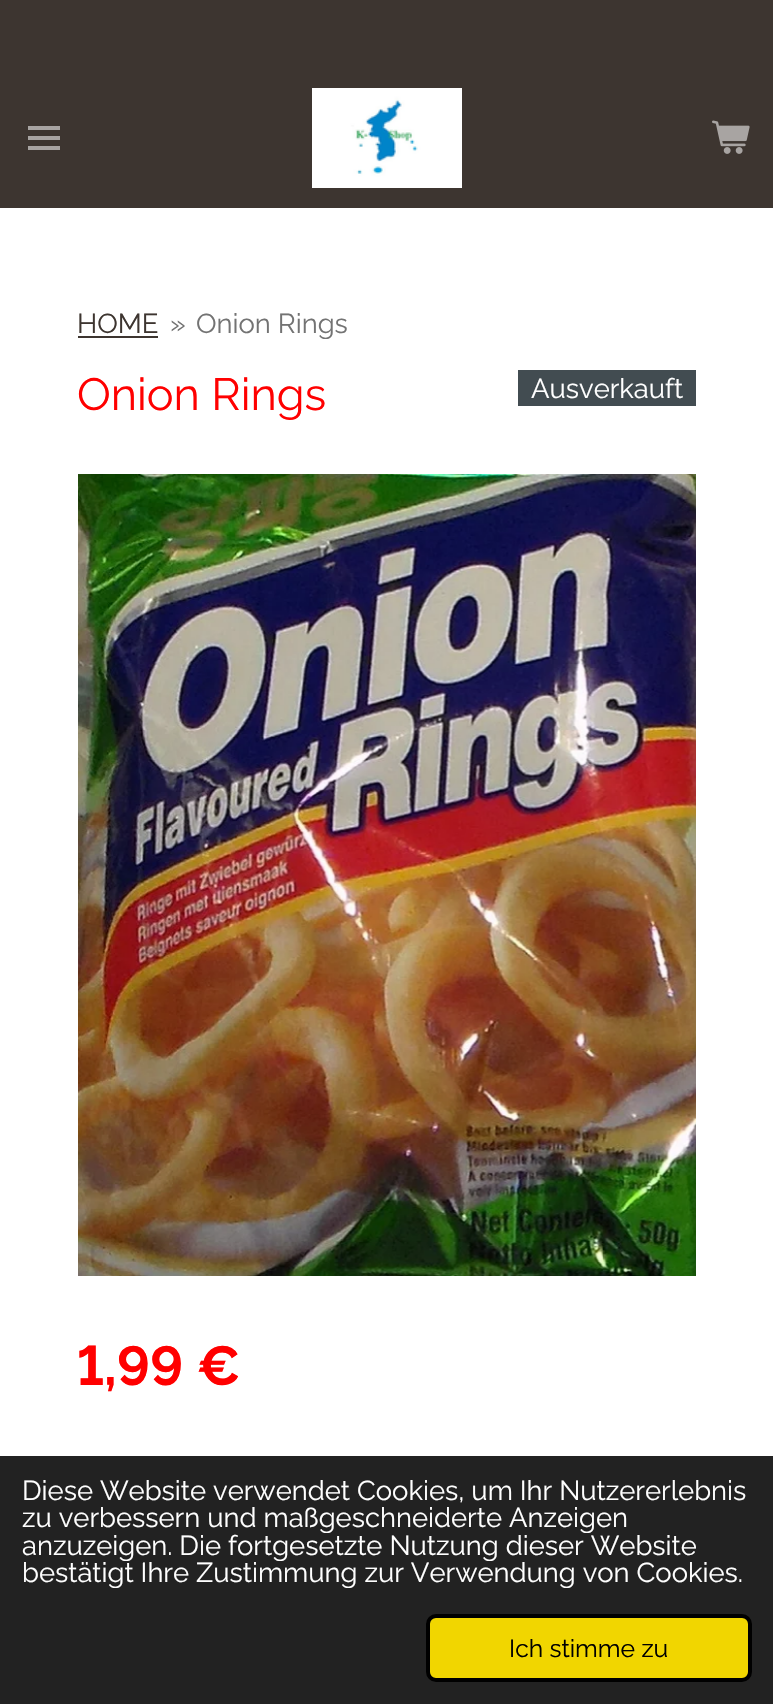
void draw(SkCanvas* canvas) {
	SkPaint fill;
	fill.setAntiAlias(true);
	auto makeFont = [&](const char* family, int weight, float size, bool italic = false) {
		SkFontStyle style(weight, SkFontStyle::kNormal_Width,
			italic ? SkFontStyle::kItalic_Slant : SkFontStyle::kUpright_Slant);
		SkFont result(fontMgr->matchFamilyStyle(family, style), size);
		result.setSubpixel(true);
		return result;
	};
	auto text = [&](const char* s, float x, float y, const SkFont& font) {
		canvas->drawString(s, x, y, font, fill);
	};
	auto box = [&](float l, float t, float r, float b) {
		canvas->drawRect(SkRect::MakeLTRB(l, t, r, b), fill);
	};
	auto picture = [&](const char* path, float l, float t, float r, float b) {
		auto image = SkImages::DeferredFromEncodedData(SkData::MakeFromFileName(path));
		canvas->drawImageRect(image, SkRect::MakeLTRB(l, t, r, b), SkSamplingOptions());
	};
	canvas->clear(0xFFFFFFFF);
	fill.setColor(0xFF3D3530);
	box(0, 0, 773, 68);
	box(0, 68, 88, 208);
	fill.setColor(0xFFA8A4A2);
	box(28, 136, 60, 140);
	box(28, 126, 60, 130);
	box(28, 146, 60, 150);
	fill.setColor(0xFF3D3530);
	box(88, 68, 773, 208);
	picture("image0.png", 712, 120, 750, 154);
	picture("image1.png", 312, 88, 462, 188);
	box(78, 336, 158, 338);
	fill.setColor(0xFF424C51);
	box(518, 370, 696, 406);
	picture("image2.png", 78, 474, 696, 1276);
	fill.setColor(0xFF222222);
	box(0, 1456, 773, 1704);
	fill.setColor(0xFFF1D600);
	canvas->drawRoundRect(SkRect::MakeLTRB(428, 1616, 750, 1680), 8, 8, fill);
	fill.setStyle(SkPaint::kStroke_Style);
	fill.setStrokeWidth(4);
	fill.setColor(0xFF000000);
	canvas->drawRoundRect(SkRect::MakeLTRB(428, 1616, 750, 1680), 8, 8, fill);
	auto font1 = makeFont("Raleway", 400, 27.4f);
	fill.setStyle(SkPaint::kFill_Style);
	fill.setColor(0xFF3D3530);
	text("HOME", 77, 333, font1);
	fill.setColor(0xFF737373);
	text("»", 170, 333, font1);
	text("Onion Rings", 196, 333, font1);
	auto font2 = makeFont("Raleway", 400, 45);
	fill.setColor(0xFFFF0000);
	text("Onion Rings", 77, 410, font2);
	fill.setColor(0xFFFFFFFF);
	text("Ausverkauft", 531, 398, font1);
	auto font3 = makeFont("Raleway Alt", 700, 55);
	fill.setColor(0xFFFF0000);
	text("1,99 €", 77, 1385, font3);
	fill.setColor(0xFFFFFFFF);
	text("Diese Website verwendet Cookies, um Ihr Nutzererlebnis", 22, 1500, font1);
	text("zu verbessern und maßgeschneiderte Anzeigen", 22, 1527, font1);
	text("anzuzeigen. Die fortgesetzte Nutzung dieser Website", 22, 1555, font1);
	text("bestätigt Ihre Zustimmung zur Verwendung von Cookies.", 22, 1582, font1);
	auto font4 = makeFont("Raleway", 400, 24.75f);
	fill.setColor(0xFF000000);
	text("Ich stimme zu", 509, 1657, font4);
}
